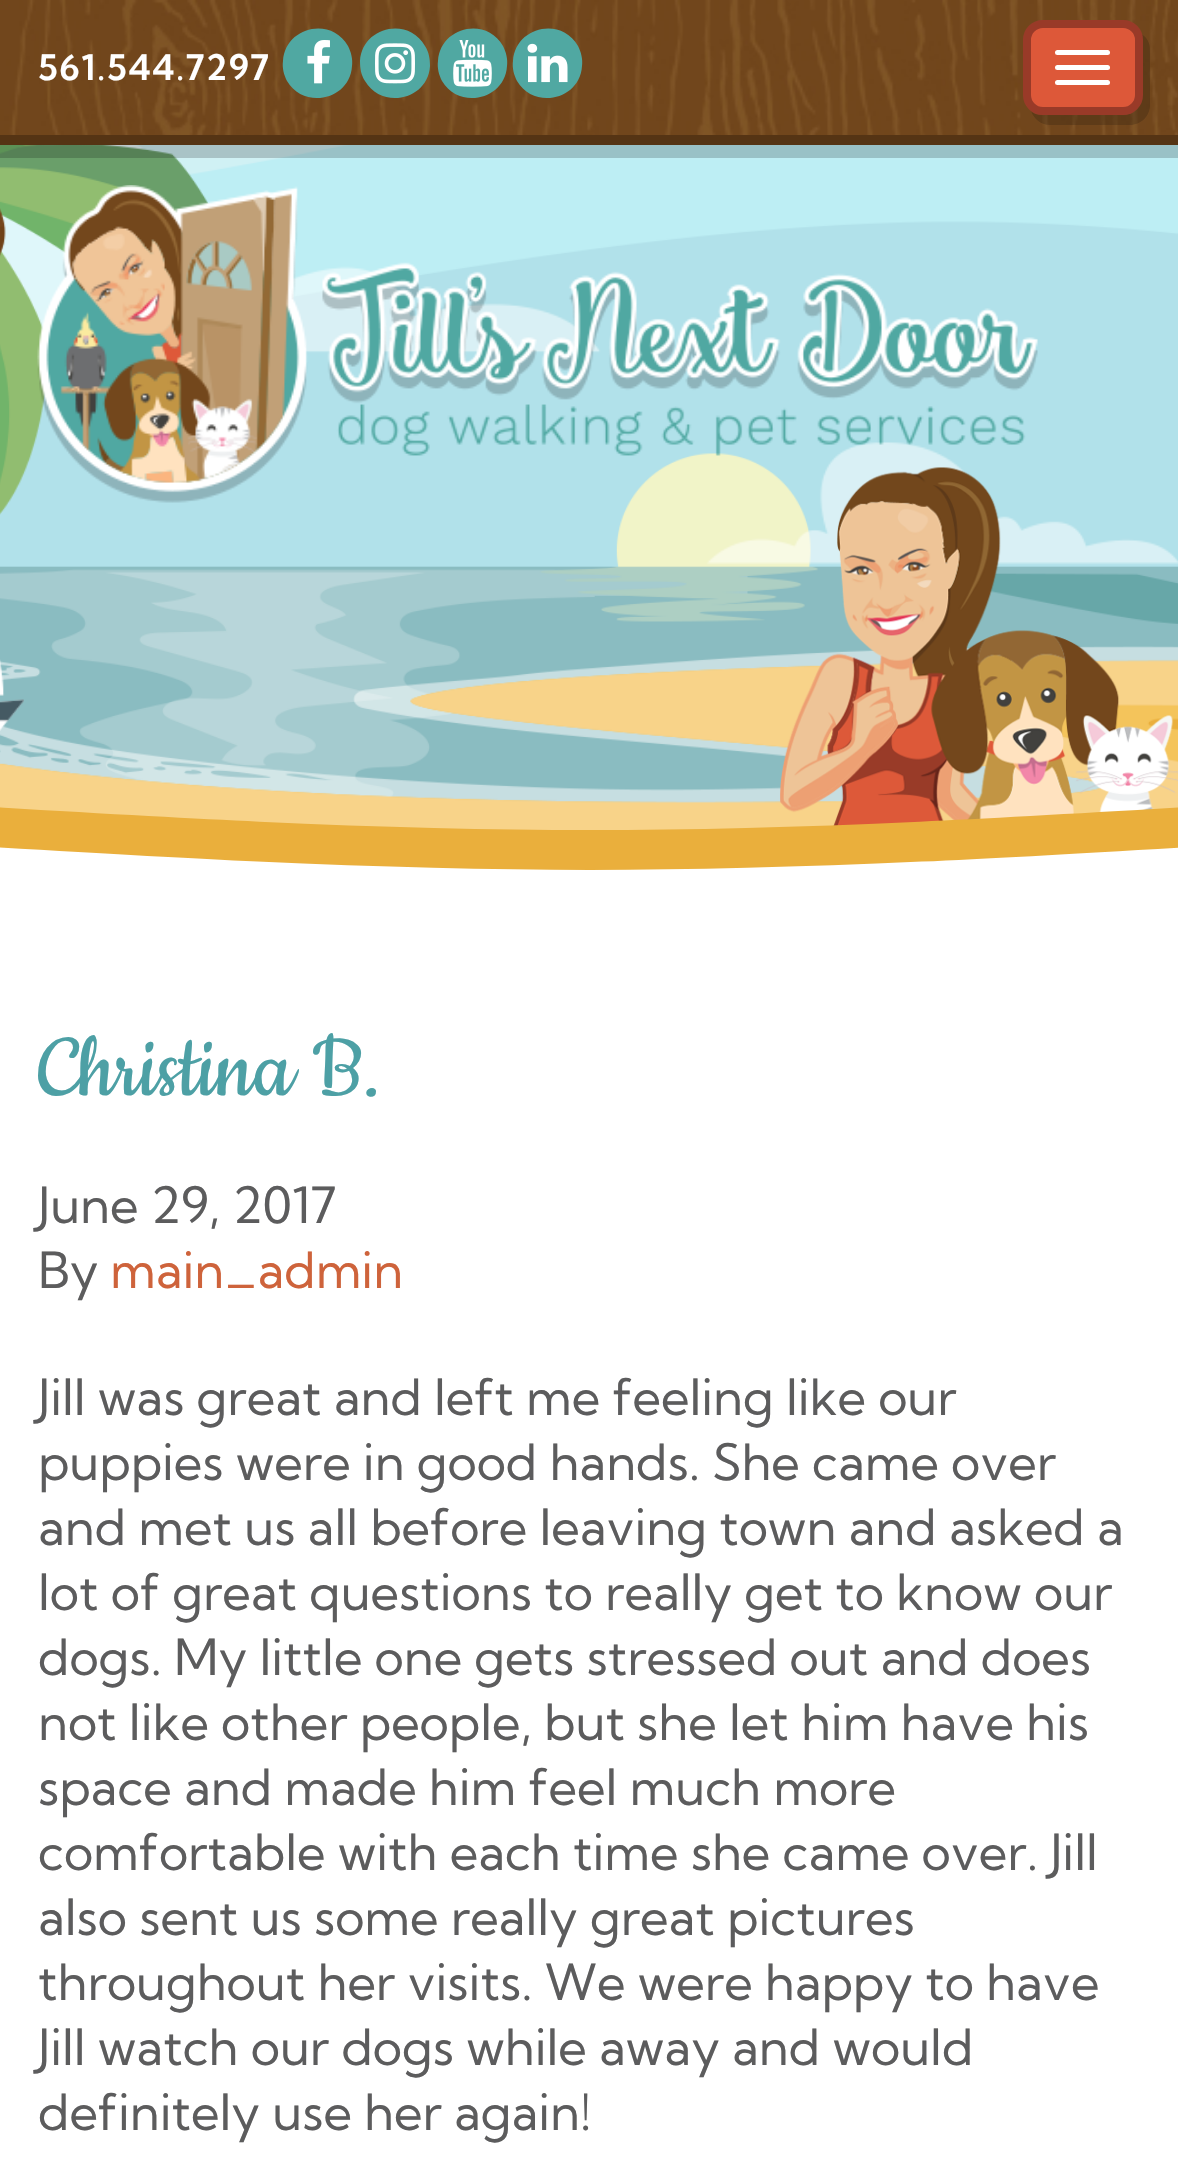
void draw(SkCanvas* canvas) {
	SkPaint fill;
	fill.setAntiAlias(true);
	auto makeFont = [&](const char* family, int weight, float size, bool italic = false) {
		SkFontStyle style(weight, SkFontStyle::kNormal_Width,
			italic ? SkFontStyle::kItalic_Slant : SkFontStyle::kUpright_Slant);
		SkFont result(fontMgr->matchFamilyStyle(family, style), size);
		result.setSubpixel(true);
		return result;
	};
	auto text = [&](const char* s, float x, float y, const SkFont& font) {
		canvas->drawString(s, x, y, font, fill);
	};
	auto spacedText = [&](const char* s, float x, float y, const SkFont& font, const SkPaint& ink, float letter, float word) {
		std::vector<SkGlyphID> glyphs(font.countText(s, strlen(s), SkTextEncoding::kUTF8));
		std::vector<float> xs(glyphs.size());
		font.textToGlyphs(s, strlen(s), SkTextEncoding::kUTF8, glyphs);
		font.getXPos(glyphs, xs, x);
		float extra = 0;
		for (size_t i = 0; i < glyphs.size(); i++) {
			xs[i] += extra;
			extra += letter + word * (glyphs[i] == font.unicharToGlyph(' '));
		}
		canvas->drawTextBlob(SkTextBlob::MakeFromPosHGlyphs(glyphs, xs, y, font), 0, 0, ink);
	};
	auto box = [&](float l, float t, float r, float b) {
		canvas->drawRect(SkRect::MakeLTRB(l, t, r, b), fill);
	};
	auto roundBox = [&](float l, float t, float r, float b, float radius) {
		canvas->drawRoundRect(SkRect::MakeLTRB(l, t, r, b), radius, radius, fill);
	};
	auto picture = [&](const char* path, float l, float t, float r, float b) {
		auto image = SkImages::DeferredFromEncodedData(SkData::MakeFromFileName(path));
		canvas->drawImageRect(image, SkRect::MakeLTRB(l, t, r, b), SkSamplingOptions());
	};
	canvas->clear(0xFFFFFFFF);
	picture("image5.png", 0, 145, 1178, 830);
	picture("image6.png", 0, 145, 1178, 565);
	picture("image7.png", 0, 145, 210, 515);
	fill.setColor(0x30000000);
	box(0, 145, 1178, 158);
	picture("image0.png", 0, 0, 1178, 135);
	fill.setColor(0xFF553414);
	box(0, 135, 1178, 145);
	fill.setColor(0xFF50A8A2);
	canvas->drawPath(SkPathBuilder().moveTo(348, 46).cubicTo(351, 52, 353, 59, 352, 66).cubicTo(350, 100, 304, 110, 287, 81).cubicTo(284, 75, 282, 68, 283, 61).cubicTo(285, 27, 331, 16, 348, 46).close().detach(), fill);
	picture("image1.png", 307, 40, 330, 84);
	canvas->drawPath(SkPathBuilder().moveTo(425, 46).cubicTo(429, 52, 430, 59, 430, 66).cubicTo(428, 100, 382, 110, 365, 81).cubicTo(361, 75, 360, 68, 360, 61).cubicTo(362, 27, 408, 16, 425, 46).close().detach(), fill);
	picture("image2.png", 375, 43, 415, 84);
	canvas->drawPath(SkPathBuilder().moveTo(503, 46).cubicTo(506, 52, 508, 59, 507, 66).cubicTo(505, 100, 459, 110, 442, 81).cubicTo(439, 75, 437, 68, 438, 61).cubicTo(440, 27, 486, 16, 503, 46).close().detach(), fill);
	picture("image3.png", 453, 40, 492, 87);
	canvas->drawPath(SkPathBuilder().moveTo(578, 46).cubicTo(581, 52, 583, 59, 582, 66).cubicTo(580, 100, 534, 110, 517, 81).cubicTo(514, 75, 512, 68, 513, 61).cubicTo(515, 27, 561, 16, 578, 46).close().detach(), fill);
	picture("image4.png", 527, 43, 568, 83);
	fill.setColor(0x2E040505);
	canvas->drawPath(SkPathBuilder().moveTo(1031, 111).cubicTo(1034, 119, 1041, 125, 1050, 125).lineTo(1130, 125).cubicTo(1141, 125, 1150, 116, 1150, 105).lineTo(1150, 50).cubicTo(1150, 43, 1147, 37, 1141, 34).cubicTo(1142, 36, 1142, 38, 1142, 40).lineTo(1142, 95).cubicTo(1142, 106, 1134, 115, 1122, 115).lineTo(1042, 115).cubicTo(1038, 115, 1034, 114, 1031, 111).close().detach(), fill);
	fill.setColor(0xFFDD5839);
	canvas->drawRoundRect(SkRect::MakeLTRB(1027, 24, 1139, 111), 16, 16, fill);
	fill.setStyle(SkPaint::kStroke_Style);
	fill.setStrokeWidth(8);
	fill.setColor(0xFF993A28);
	canvas->drawRoundRect(SkRect::MakeLTRB(1027, 24, 1139, 111), 16, 16, fill);
	fill.setStyle(SkPaint::kFill_Style);
	fill.setColor(0xFFFFFFFF);
	roundBox(1055, 50, 1110, 55, 2.5f);
	roundBox(1055, 65, 1110, 70, 2.5f);
	roundBox(1055, 80, 1110, 85, 2.5f);
	picture("image10.png", 780, 467, 1178, 826);
	picture("image8.png", 37, 185, 1038, 503);
	picture("image9.png", 0, 659, 24, 731);
	canvas->save();
	canvas->clipRect(SkRect::MakeLTRB(0, 760, 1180, 885));
	canvas->drawPath(SkPathBuilder(SkPathFillType::kEvenOdd).moveTo(-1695, 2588).lineTo(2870, 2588).lineTo(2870, 850).cubicTo(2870, 850, 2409, 800, 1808, 800).cubicTo(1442, 800, 1016, 850, 590, 850).cubicTo(163, 850, -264, 800, -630, 800).cubicTo(-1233, 800, -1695, 850, -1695, 850).close().detach(), fill);
	canvas->restore();
	fill.setStyle(SkPaint::kStroke_Style);
	fill.setStrokeWidth(40);
	fill.setStrokeJoin(SkPaint::kRound_Join);
	fill.setColor(0xFFEAAF3C);
	canvas->drawPath(SkPathBuilder().moveTo(-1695, 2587.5f).lineTo(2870, 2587.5f).lineTo(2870, 850).cubicTo(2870, 850, 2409, 800, 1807.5f, 800).cubicTo(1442.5f, 800, 1016, 850, 590, 850).cubicTo(163, 850, -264, 800, -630, 800).cubicTo(-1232.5f, 800, -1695, 850, -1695, 850).close().detach(), fill);
	auto font1 = makeFont("Kumbh Sans", 600, 35);
	fill.setStyle(SkPaint::kFill_Style);
	fill.setColor(0xFFFFFFFF);
	spacedText("561.544.7297", 38, 80, font1, fill, 1.75f, 0);
	auto font2 = makeFont("Cookie", 400, 100);
	fill.setColor(0xFF4DA0A5);
	text("Christina B.", 38, 1095, font2);
	auto font3 = makeFont("Kumbh Sans", 400, 50);
	fill.setColor(0xFF5C5C5D);
	text("June 29, 2017", 38, 1223, font3);
	text("By", 38, 1288, font3);
	fill.setColor(0xFFCE633B);
	text("main_admin", 110, 1288, font3);
	fill.setColor(0xFF5C5C5D);
	text("Jill was great and left me feeling like our", 38, 1415, font3);
	text("puppies were in good hands. She came over", 38, 1480, font3);
	text("and met us all before leaving town and asked a", 38, 1545, font3);
	text("lot of great questions to really get to know our", 38, 1610, font3);
	text("dogs. My little one gets stressed out and does", 38, 1675, font3);
	text("not like other people, but she let him have his", 38, 1740, font3);
	text("space and made him feel much more", 38, 1805, font3);
	text("comfortable with each time she came over. Jill", 38, 1870, font3);
	text("also sent us some really great pictures", 38, 1935, font3);
	text("throughout her visits. We were happy to have", 38, 2000, font3);
	text("Jill watch our dogs while away and would", 38, 2065, font3);
	text("definitely use her again!", 38, 2130, font3);
}
